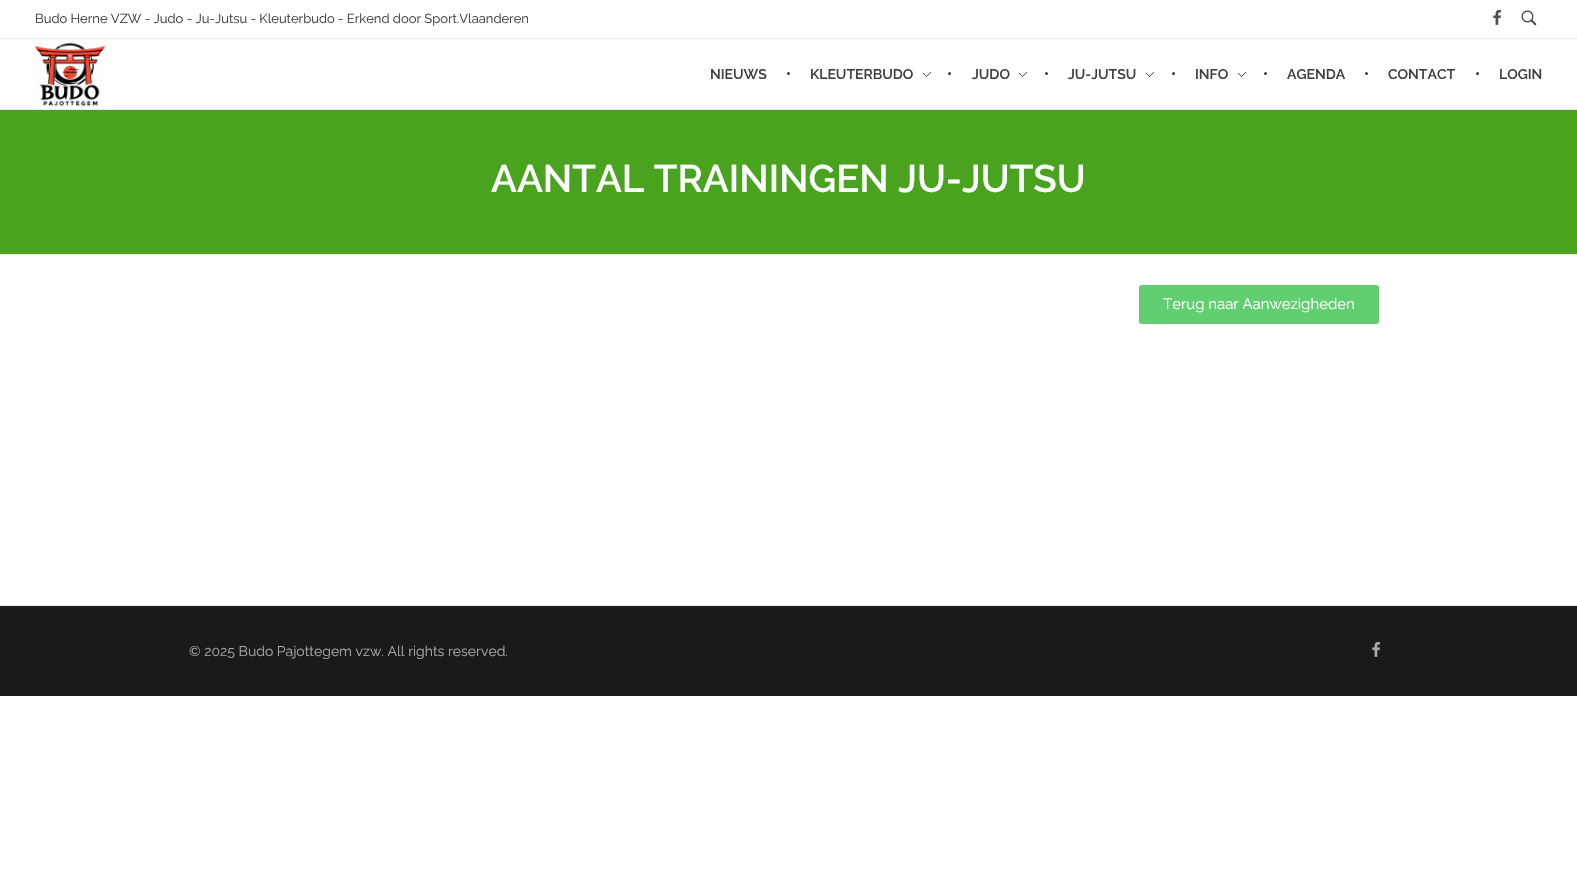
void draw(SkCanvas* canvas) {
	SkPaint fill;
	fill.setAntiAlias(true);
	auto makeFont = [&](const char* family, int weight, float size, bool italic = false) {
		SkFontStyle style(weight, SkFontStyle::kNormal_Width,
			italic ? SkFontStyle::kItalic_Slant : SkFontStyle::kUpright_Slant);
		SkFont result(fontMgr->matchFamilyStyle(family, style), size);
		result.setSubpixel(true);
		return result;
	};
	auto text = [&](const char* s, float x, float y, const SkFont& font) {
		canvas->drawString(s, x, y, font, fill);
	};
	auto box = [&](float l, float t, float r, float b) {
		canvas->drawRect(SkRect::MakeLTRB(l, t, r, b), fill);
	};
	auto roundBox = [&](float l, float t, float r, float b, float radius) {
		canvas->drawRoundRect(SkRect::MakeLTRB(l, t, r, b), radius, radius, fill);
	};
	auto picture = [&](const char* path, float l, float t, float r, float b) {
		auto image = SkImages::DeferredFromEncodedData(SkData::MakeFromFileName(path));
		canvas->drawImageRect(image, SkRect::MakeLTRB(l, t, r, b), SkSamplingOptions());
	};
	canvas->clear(0xFFFFFFFF);
	fill.setColor(0xFFEAEAEA);
	box(0, 38, 1577, 39);
	picture("image0.png", 1493, 10, 1501, 25);
	picture("image1.png", 1521, 10, 1537, 26);
	box(0, 109, 1577, 110);
	picture("image2.png", 35, 42, 105, 107);
	fill.setColor(0xFF3D3D3D);
	canvas->drawCircle(788.5f, 73.5f, 1.5f, fill);
	picture("image3.png", 923, 72, 931, 77);
	canvas->drawCircle(949.5f, 73.5f, 1.5f, fill);
	picture("image3.png", 1019, 72, 1027, 77);
	canvas->drawCircle(1046.5f, 73.5f, 1.5f, fill);
	picture("image3.png", 1146, 72, 1154, 77);
	canvas->drawCircle(1173.5f, 73.5f, 1.5f, fill);
	picture("image3.png", 1238, 72, 1246, 77);
	canvas->drawCircle(1265.5f, 73.5f, 1.5f, fill);
	canvas->drawCircle(1366.5f, 73.5f, 1.5f, fill);
	canvas->drawCircle(1477.5f, 73.5f, 1.5f, fill);
	fill.setColor(0xFF49A31E);
	box(0, 110, 1577, 254);
	fill.setColor(0xFFEAEAEA);
	box(0, 254, 1577, 255);
	fill.setColor(0xFF61CE70);
	roundBox(1139, 285, 1379, 324, 3);
	fill.setColor(0xFF1A1A1A);
	box(0, 606, 1577, 696);
	fill.setColor(0xFFEAEAEA);
	box(0, 605, 1577, 606);
	picture("image4.png", 1372, 642, 1380, 657);
	auto font1 = makeFont("Raleway", 400, 13);
	fill.setColor(0xFF3D3D3D);
	text("Budo Herne VZW - Judo - Ju-Jutsu - Kleuterbudo - Erkend door Sport.Vlaanderen", 35, 23, font1);
	auto font2 = makeFont("Raleway", 600, 14);
	text("NIEUWS", 710, 79, font2);
	text("KLEUTERBUDO", 810, 79, font2);
	text("JUDO", 972, 79, font2);
	text("JU-JUTSU", 1068, 79, font2);
	text("INFO", 1195, 79, font2);
	text("AGENDA", 1287, 79, font2);
	text("CONTACT", 1388, 79, font2);
	text("LOGIN", 1499, 79, font2);
	auto font3 = makeFont("Raleway", 600, 38.4f);
	fill.setColor(0xFFFFFFFF);
	text("AANTAL TRAININGEN JU-JUTSU", 491, 192, font3);
	auto font4 = makeFont("Raleway", 400, 15);
	text("Terug naar Aanwezigheden", 1163, 309, font4);
	auto font5 = makeFont("Raleway", 400, 14);
	fill.setColor(0xFFAAAAAA);
	text("© 2025 Budo Pajottegem vzw. All rights reserved.", 189, 656, font5);
}
